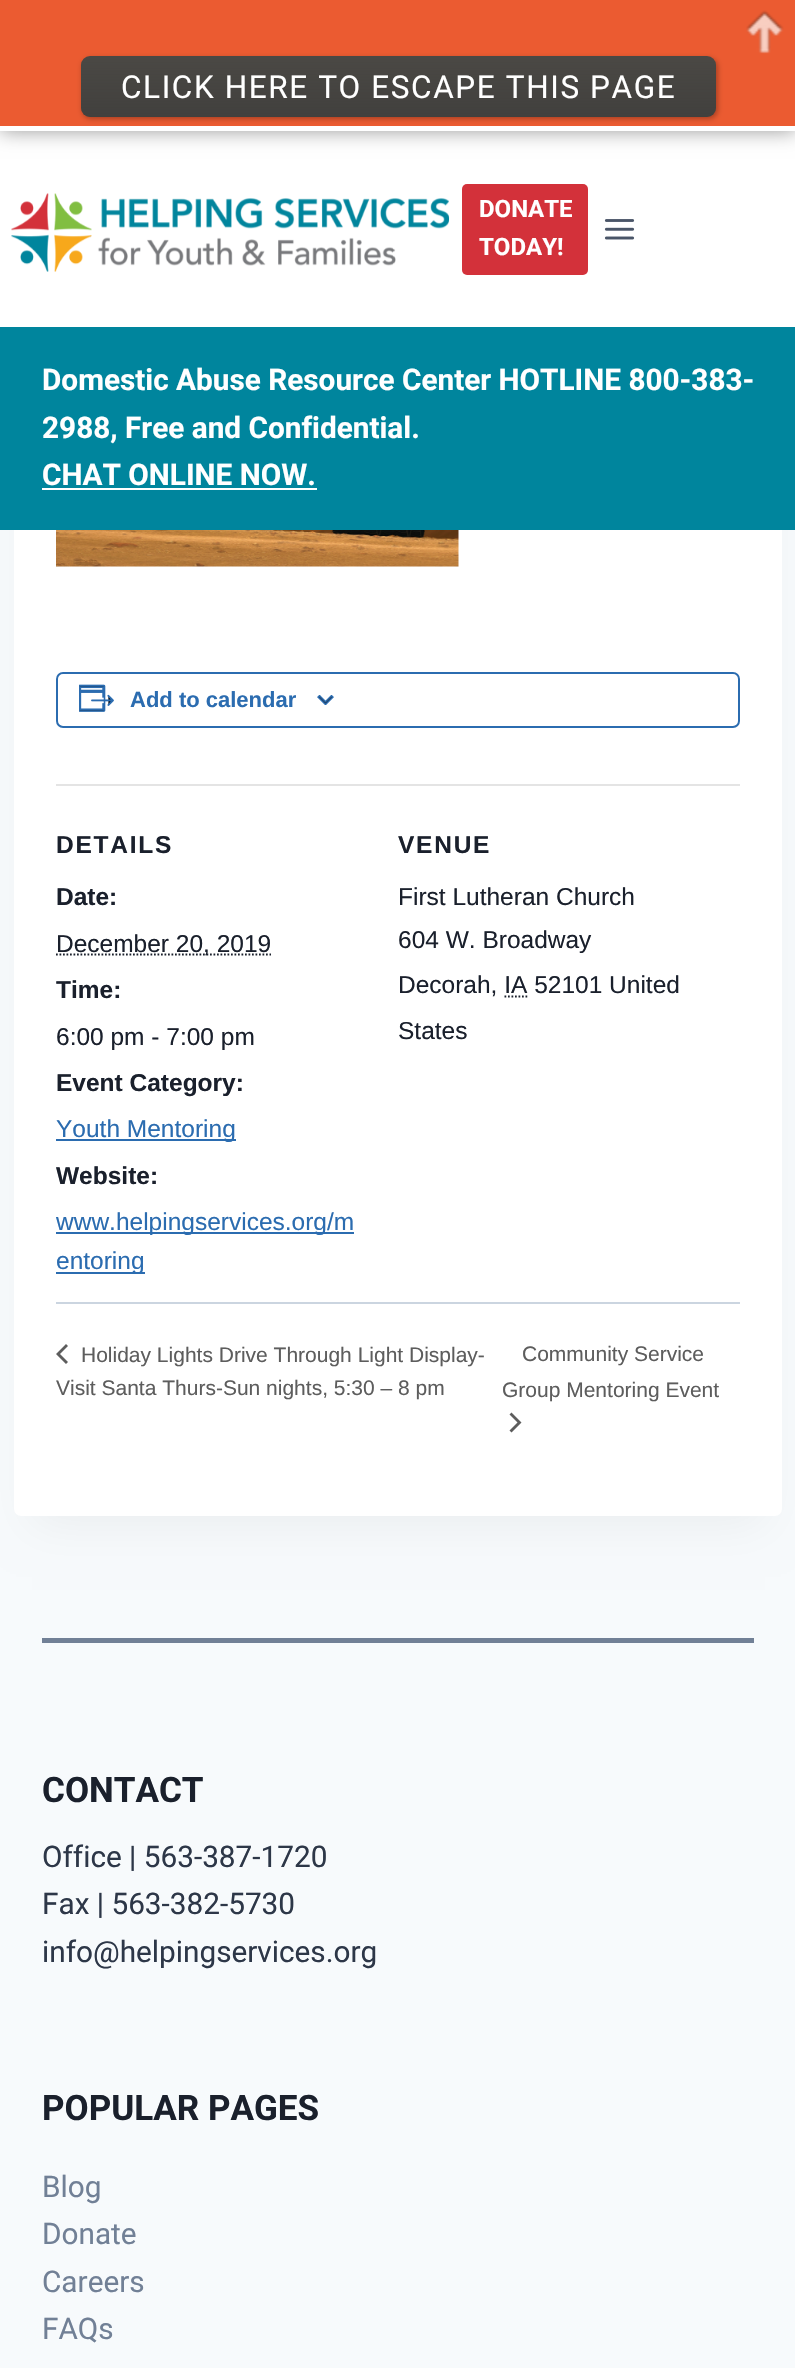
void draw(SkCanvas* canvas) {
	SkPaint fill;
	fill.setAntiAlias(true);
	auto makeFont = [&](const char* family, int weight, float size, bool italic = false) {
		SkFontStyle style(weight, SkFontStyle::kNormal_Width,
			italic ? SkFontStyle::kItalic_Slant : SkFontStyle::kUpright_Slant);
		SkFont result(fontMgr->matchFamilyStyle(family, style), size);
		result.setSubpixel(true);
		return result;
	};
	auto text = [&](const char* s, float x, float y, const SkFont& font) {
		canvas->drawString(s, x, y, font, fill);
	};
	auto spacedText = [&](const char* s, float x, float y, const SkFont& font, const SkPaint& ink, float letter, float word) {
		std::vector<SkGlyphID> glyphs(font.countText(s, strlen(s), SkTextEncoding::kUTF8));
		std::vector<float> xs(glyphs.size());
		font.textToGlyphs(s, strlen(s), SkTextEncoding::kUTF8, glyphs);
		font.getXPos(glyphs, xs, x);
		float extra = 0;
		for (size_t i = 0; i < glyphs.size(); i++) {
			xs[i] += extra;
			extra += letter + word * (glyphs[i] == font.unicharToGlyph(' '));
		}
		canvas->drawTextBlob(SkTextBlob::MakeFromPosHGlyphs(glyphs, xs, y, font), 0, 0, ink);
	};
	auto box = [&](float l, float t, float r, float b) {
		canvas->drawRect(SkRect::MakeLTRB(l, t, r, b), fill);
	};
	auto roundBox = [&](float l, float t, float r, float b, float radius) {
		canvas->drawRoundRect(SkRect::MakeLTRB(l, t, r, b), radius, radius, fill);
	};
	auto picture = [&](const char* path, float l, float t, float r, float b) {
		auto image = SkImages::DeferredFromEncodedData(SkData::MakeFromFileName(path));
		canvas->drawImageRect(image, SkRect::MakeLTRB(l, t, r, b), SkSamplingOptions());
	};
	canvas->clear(0xFFF7FAFC);
	fill.setColor(0x0D000000);
	fill.setMaskFilter(SkMaskFilter::MakeBlur(kNormal_SkBlurStyle, 22));
	canvas->drawRect(SkRect::MakeLTRB(32, -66, 765, 1524), fill);
	fill.setMaskFilter(nullptr);
	fill.setColor(0xFFFFFFFF);
	roundBox(14, -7, 782, 1516, 7);
	box(0, 131, 795, 327);
	fill.setColor(0x66000000);
	fill.setMaskFilter(SkMaskFilter::MakeBlur(kNormal_SkBlurStyle, 9.5f));
	canvas->drawRect(SkRect::MakeLTRB(0, 0, 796, 131), fill);
	fill.setMaskFilter(nullptr);
	fill.setColor(0xFFEB5B31);
	box(0, 0, 795, 126);
	fill.setColor(0xFFFFFFFF);
	box(0, 126, 795, 131);
	picture("image0.png", 746, 10, 784, 54);
	fill.setColor(0x47000000);
	fill.setMaskFilter(SkMaskFilter::MakeBlur(kNormal_SkBlurStyle, 2.5f));
	canvas->drawRoundRect(SkRect::MakeLTRB(82, 58, 718, 119), 9, 9, fill);
	fill.setMaskFilter(nullptr);
	fill.setColor(0xFF4A4844);
	roundBox(81, 56, 716, 117, 9);
	{
		const SkColor colors[] = {0x00333333, 0x66333333};
		const float stops[] = {0, 1};
		const SkPoint ends[] = {{81, 56}, {81, 117}};
		fill.setShader(SkGradientShader::MakeLinear(ends, colors, stops, 2, SkTileMode::kClamp));
		fill.setAlpha(255);
	}
	roundBox(81, 56, 716, 117, 9);
	picture("image1.png", 11, 193, 450, 272);
	fill.setShader(nullptr);
	fill.setColor(0xFFD3313A);
	roundBox(462, 184, 588, 275, 5);
	picture("image2.png", 604, 219, 635, 240);
	fill.setColor(0xFF00859D);
	box(0, 327, 795, 530);
	fill.setColor(0xFFFFFFFF);
	box(42, 488, 317, 490);
	picture("image3.png", 56, 530, 459, 567);
	fill.setStyle(SkPaint::kStroke_Style);
	fill.setStrokeWidth(2);
	fill.setColor(0xFF2B6CB0);
	canvas->drawRoundRect(SkRect::MakeLTRB(57, 673, 739, 727), 6, 6, fill);
	picture("image4.png", 79, 684, 114, 712);
	picture("image5.png", 317, 695, 334, 705);
	fill.setStyle(SkPaint::kFill_Style);
	fill.setColor(0xFFE4E4E4);
	box(56, 784, 740, 786);
	fill.setStyle(SkPaint::kStroke_Style);
	fill.setStrokeWidth(1.8f);
	fill.setColor(0xFF1A202C);
	fill.setPathEffect(SkDashPathEffect::Make({{1.75f, 1.75f}}, 0));
	canvas->drawPath(SkPathBuilder().moveTo(56, 954.5f).lineTo(271, 954.5f).detach(), fill);
	fill.setPathEffect(nullptr);
	fill.setStyle(SkPaint::kFill_Style);
	fill.setColor(0xFF2B6CB0);
	box(56, 1139, 236, 1141);
	box(56, 1232, 354, 1234);
	box(56, 1272, 145, 1274);
	fill.setStyle(SkPaint::kStroke_Style);
	fill.setColor(0xFF1A202C);
	fill.setPathEffect(SkDashPathEffect::Make({{1.75f, 1.75f}}, 0));
	canvas->drawPath(SkPathBuilder().moveTo(504.5f, 996.5f).lineTo(527.5f, 996.5f).detach(), fill);
	fill.setPathEffect(nullptr);
	fill.setStyle(SkPaint::kFill_Style);
	fill.setColor(0xFFCBD5E0);
	box(56, 1302, 740, 1304);
	fill.setColor(0xFF5D5D5D);
	canvas->drawPath(SkPathBuilder().moveTo(68, 1362).lineTo(66, 1364).lineTo(56, 1354).lineTo(66, 1344).lineTo(68, 1346).lineTo(60, 1354).close().detach(), fill);
	canvas->drawPath(SkPathBuilder().moveTo(509.5f, 1414.5f).lineTo(511.5f, 1412.5f).lineTo(521.5f, 1422.5f).lineTo(511.5f, 1432.5f).lineTo(509.5f, 1430.5f).lineTo(517.5f, 1422.5f).close().detach(), fill);
	fill.setColor(0xFF718096);
	box(42, 1638, 754, 1643);
	auto font1 = makeFont("Roboto", 400, 31.5f);
	fill.setColor(0xFFFFFFFF);
	spacedText("CLICK HERE TO ESCAPE THIS PAGE", 121, 98, font1, fill, 1.6f, 0);
	auto font2 = makeFont("Roboto", 700, 24);
	text("DONATE", 479, 217, font2);
	text("TODAY!", 479, 255, font2);
	auto font3 = makeFont("Roboto", 700, 29.75f);
	text("Domestic Abuse Resource Center HOTLINE 800-383-", 42, 390, font3);
	text("2988, Free and Confidential.", 42, 438, font3);
	text("CHAT ONLINE NOW.", 42, 485, font3);
	auto font4 = makeFont("Liberation Sans", 700, 22);
	fill.setColor(0xFF2B6CB0);
	text("Add to calendar", 130, 707, font4);
	auto font5 = makeFont("Liberation Sans", 700, 24.5f);
	fill.setColor(0xFF1A202C);
	spacedText("DETAILS", 56, 853, font5, fill, 1.75f, 0);
	text("Date:", 56, 905, font5);
	auto font6 = makeFont("Liberation Sans", 400, 24.5f);
	text("December 20, 2019", 56, 952, font6);
	text("Time:", 56, 998, font5);
	text("6:00 pm - 7:00 pm", 56, 1045, font6);
	text("Event Category:", 56, 1091, font5);
	fill.setColor(0xFF2B6CB0);
	text("Youth Mentoring", 56, 1137, font6);
	fill.setColor(0xFF1A202C);
	text("Website:", 56, 1184, font5);
	fill.setColor(0xFF2B6CB0);
	text("www.helpingservices.org/m", 56, 1230, font6);
	text("entoring", 56, 1269, font6);
	fill.setColor(0xFF1A202C);
	spacedText("VENUE", 398, 853, font5, fill, 1.75f, 0);
	text("First Lutheran Church", 398, 905, font6);
	text("604 W. Broadway", 398, 948, font6);
	text("Decorah, IA 52101 United", 398, 993, font6);
	text("States", 398, 1039, font6);
	auto font7 = makeFont("Liberation Sans", 400, 21);
	fill.setColor(0xFF5D5D5D);
	text("Holiday Lights Drive Through Light Display-", 81, 1362, font7);
	text("Visit Santa Thurs-Sun nights, 5:30 – 8 pm", 56, 1395, font7);
	text("Community Service", 522, 1361, font7);
	text("Group Mentoring Event", 502, 1397, font7);
	auto font8 = makeFont("Roboto", 700, 35);
	fill.setColor(0xFF1A202C);
	text("CONTACT", 42, 1802, font8);
	auto font9 = makeFont("Roboto", 400, 29.75f);
	fill.setColor(0xFF2D3748);
	text("Office | 563-387-1720", 42, 1867, font9);
	text("Fax | 563-382-5730", 42, 1914, font9);
	text("info@helpingservices.org", 42, 1962, font9);
	fill.setColor(0xFF1A202C);
	text("POPULAR PAGES", 42, 2120, font8);
	fill.setColor(0xFF718096);
	text("Blog", 42, 2197, font9);
	text("Donate", 42, 2244, font9);
	text("Careers", 42, 2292, font9);
	text("FAQs", 42, 2339, font9);
}
